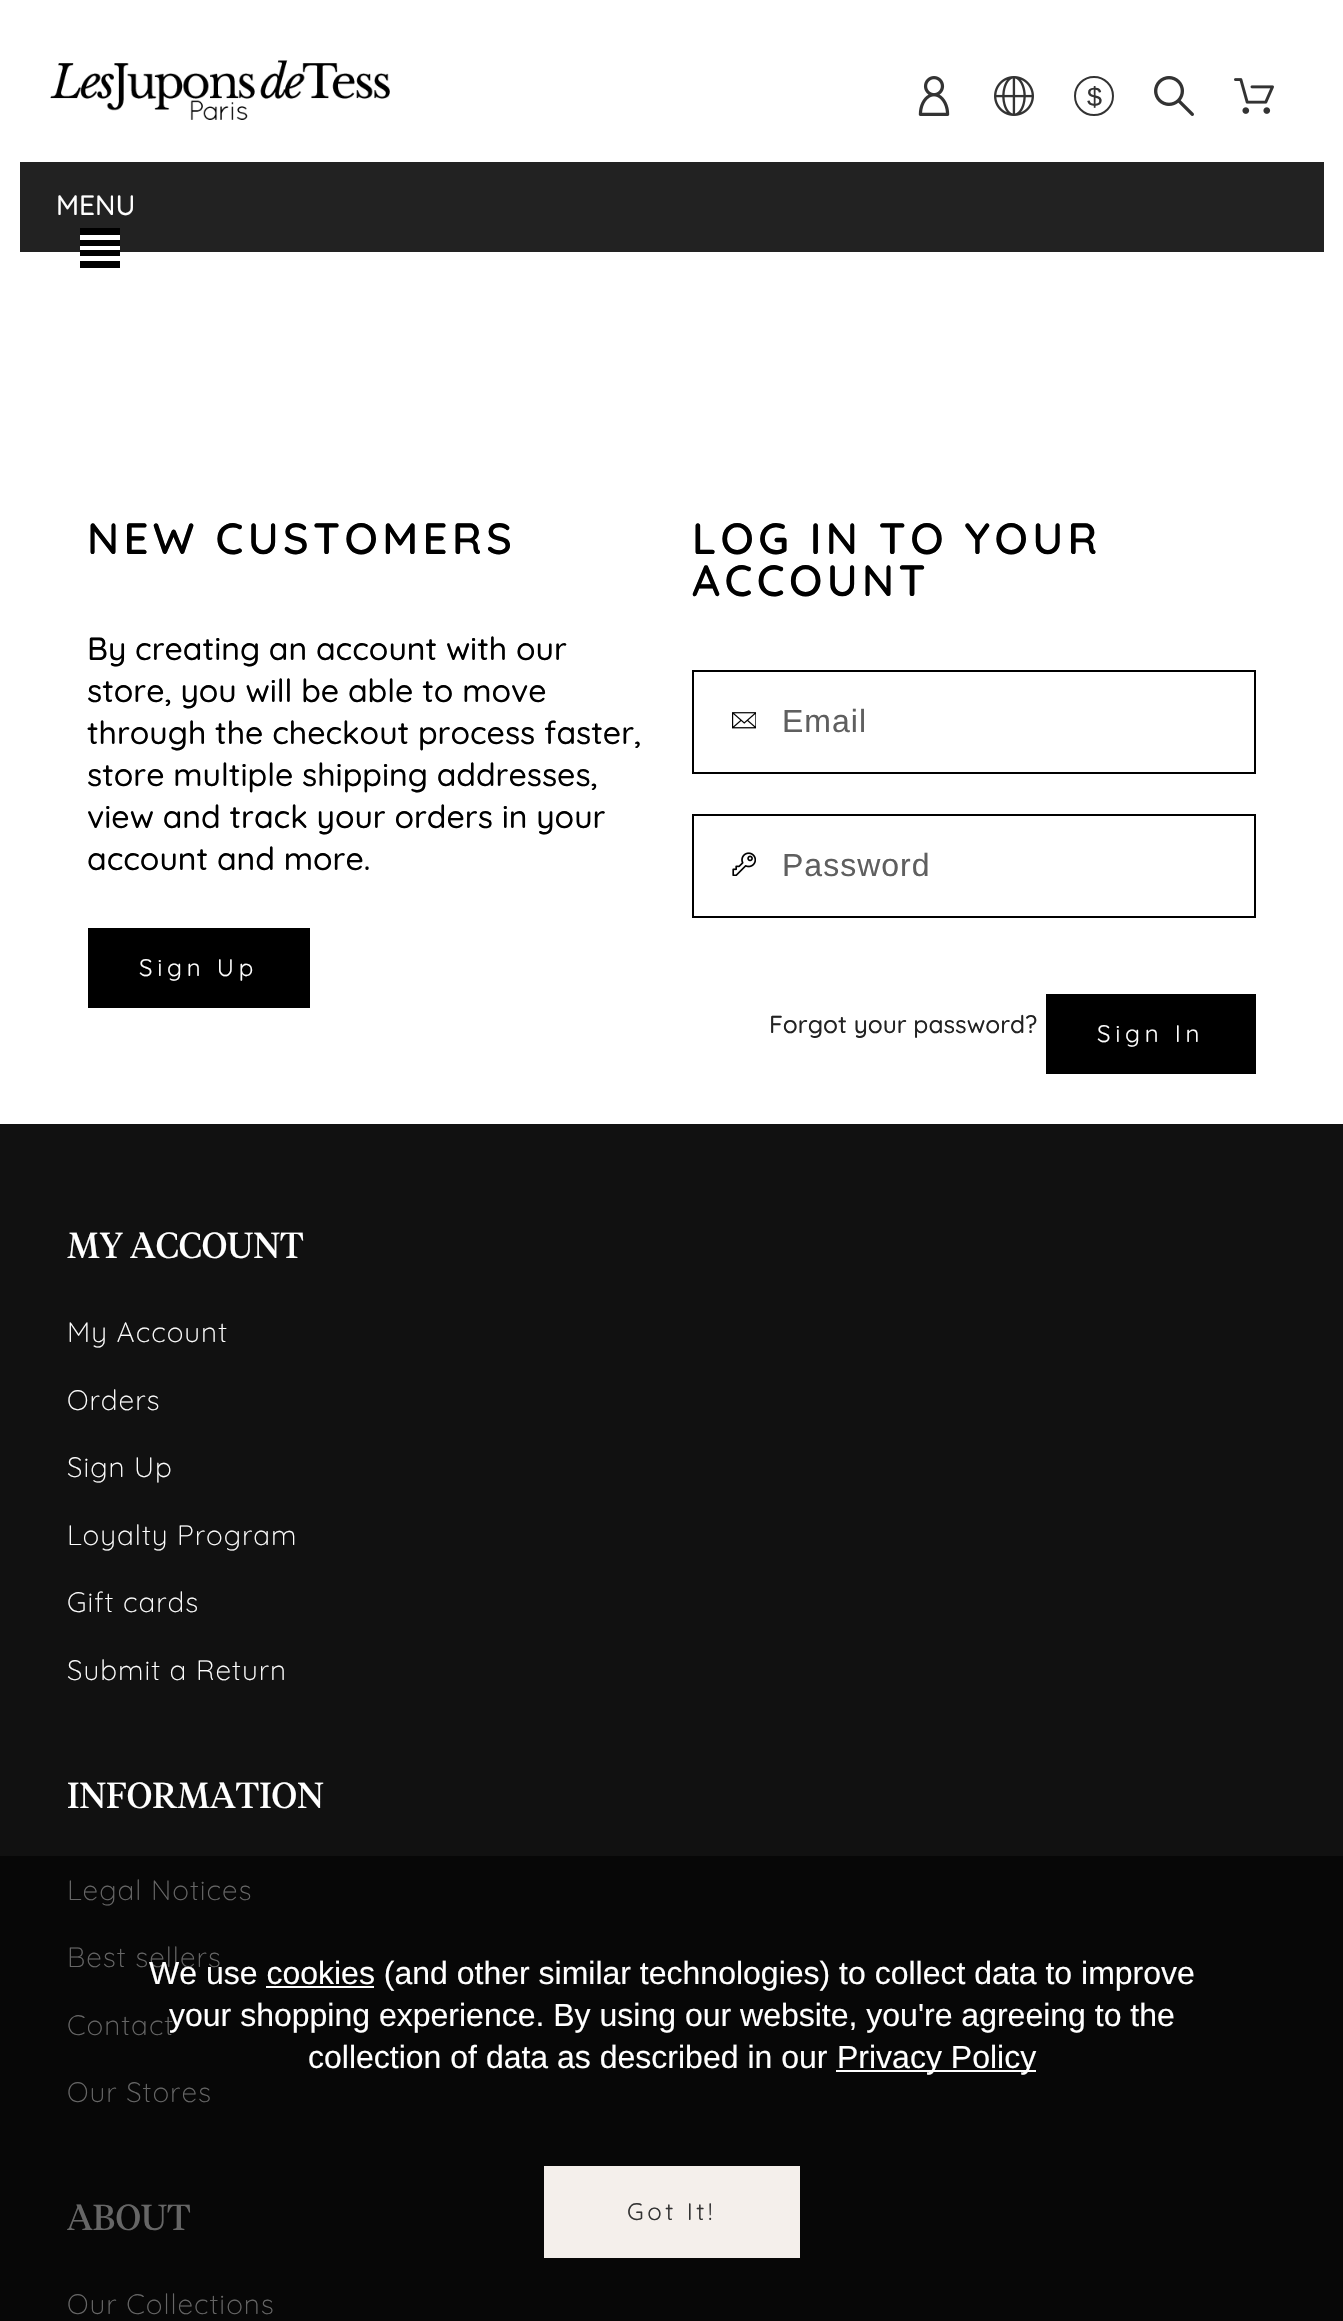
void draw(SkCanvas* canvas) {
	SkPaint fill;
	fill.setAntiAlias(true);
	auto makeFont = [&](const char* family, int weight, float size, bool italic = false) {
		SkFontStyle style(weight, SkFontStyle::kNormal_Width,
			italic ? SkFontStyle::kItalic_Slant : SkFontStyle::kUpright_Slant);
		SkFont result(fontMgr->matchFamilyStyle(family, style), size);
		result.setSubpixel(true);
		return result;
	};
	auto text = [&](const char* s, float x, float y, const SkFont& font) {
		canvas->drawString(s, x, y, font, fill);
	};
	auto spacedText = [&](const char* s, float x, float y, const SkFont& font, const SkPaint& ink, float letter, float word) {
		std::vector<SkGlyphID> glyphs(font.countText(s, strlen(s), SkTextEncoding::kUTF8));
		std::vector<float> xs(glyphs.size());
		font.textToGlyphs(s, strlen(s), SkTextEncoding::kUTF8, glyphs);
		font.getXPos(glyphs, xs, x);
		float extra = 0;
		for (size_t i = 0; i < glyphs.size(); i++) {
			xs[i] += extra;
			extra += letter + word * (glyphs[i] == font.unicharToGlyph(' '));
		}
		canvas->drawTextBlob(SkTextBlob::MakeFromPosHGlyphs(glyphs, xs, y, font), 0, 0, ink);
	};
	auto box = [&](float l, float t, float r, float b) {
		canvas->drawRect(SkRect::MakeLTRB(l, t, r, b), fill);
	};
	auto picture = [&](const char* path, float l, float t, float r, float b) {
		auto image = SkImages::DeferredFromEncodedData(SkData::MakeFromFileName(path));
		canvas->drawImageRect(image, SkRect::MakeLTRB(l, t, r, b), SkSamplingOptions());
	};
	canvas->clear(0xFFFFFFFF);
	picture("image0.png", 50, 60, 390, 120);
	picture("image1.png", 918, 76, 950, 116);
	picture("image2.png", 994, 76, 1034, 116);
	fill.setStyle(SkPaint::kStroke_Style);
	fill.setStrokeWidth(2);
	fill.setColor(0xFF333333);
	canvas->drawCircle(1094, 96, 19, fill);
	picture("image3.png", 1154, 76, 1194, 116);
	picture("image4.png", 1234, 78, 1274, 114);
	fill.setStyle(SkPaint::kFill_Style);
	fill.setColor(0xFF222222);
	box(20, 162, 1324, 252);
	fill.setColor(0xFF000000);
	box(80, 228, 120, 268);
	fill.setColor(0xFFFFFFFF);
	canvas->drawPath(SkPathBuilder().moveTo(80, 261).lineTo(120, 261).lineTo(120, 256).lineTo(80, 256).close().moveTo(80, 250).lineTo(120, 250).lineTo(120, 246).lineTo(80, 246).close().moveTo(80, 235).lineTo(80, 240).lineTo(120, 240).lineTo(120, 235).close().detach(), fill);
	fill.setColor(0xFF000000);
	box(88, 928, 310, 1008);
	fill.setStyle(SkPaint::kStroke_Style);
	canvas->drawRect(SkRect::MakeLTRB(693, 671, 1255, 773), fill);
	picture("image5.png", 732, 712, 756, 729);
	canvas->drawRect(SkRect::MakeLTRB(693, 815, 1255, 917), fill);
	picture("image6.png", 732, 852, 756, 876);
	fill.setStyle(SkPaint::kFill_Style);
	box(1046, 994, 1256, 1074);
	fill.setColor(0xFF111111);
	box(0, 1124, 1343, 1856);
	fill.setColor(0xFF070707);
	box(0, 1856, 1343, 2321);
	fill.setColor(0xFFFFFFFF);
	box(266, 1986, 374, 1988);
	box(836, 2070, 1036, 2072);
	fill.setColor(0xFFF4EFEB);
	box(544, 2166, 800, 2258);
	auto font1 = makeFont("Liberation Sans", 400, 27);
	fill.setColor(0xFF333333);
	text("$", 1087, 106, font1);
	auto font2 = makeFont("Quicksand", 500, 28);
	fill.setColor(0xFFFFFFFF);
	text("MENU", 56, 215, font2);
	auto font3 = makeFont("Quicksand", 600, 43.75f);
	fill.setColor(0xFF000000);
	spacedText("NEW CUSTOMERS", 87, 554, font3, fill, 4.4f, 0);
	auto font4 = makeFont("Quicksand", 500, 32);
	text("By creating an account with our", 87, 660, font4);
	text("store, you will be able to move", 87, 702, font4);
	text("through the checkout process faster,", 87, 744, font4);
	text("store multiple shipping addresses,", 87, 786, font4);
	text("view and track your orders in your", 87, 828, font4);
	text("account and more.", 87, 870, font4);
	auto font5 = makeFont("Quicksand", 400, 24);
	fill.setColor(0xFFFFFFFF);
	spacedText("Sign Up", 139, 976, font5, fill, 4.75f, 0);
	fill.setColor(0xFF000000);
	spacedText("LOG IN TO YOUR", 692, 554, font3, fill, 4.4f, 0);
	spacedText("ACCOUNT", 692, 596, font3, fill, 4.4f, 0);
	auto font6 = makeFont("Liberation Sans", 400, 32);
	fill.setColor(0xFF5F5F5F);
	spacedText("Email", 782, 732, font6, fill, 1, 0);
	spacedText("Password", 782, 876, font6, fill, 1, 0);
	auto font7 = makeFont("Quicksand", 500, 24.5f);
	fill.setColor(0xFF222222);
	text("Forgot your password?", 769, 1033, font7);
	fill.setColor(0xFFFFFFFF);
	spacedText("Sign In", 1097, 1042, font5, fill, 4.75f, 0);
	auto font8 = makeFont("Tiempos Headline", 400, 36);
	text("MY ACCOUNT", 67, 1258, font8);
	auto font9 = makeFont("Quicksand", 300, 28);
	spacedText("My Account", 67, 1342, font9, fill, 1, 0);
	spacedText("Orders", 67, 1410, font9, fill, 1, 0);
	spacedText("Sign Up", 67, 1477, font9, fill, 1, 0);
	spacedText("Loyalty Program", 67, 1545, font9, fill, 1, 0);
	spacedText("Gift cards", 67, 1612, font9, fill, 1, 0);
	spacedText("Submit a Return", 67, 1680, font9, fill, 1, 0);
	text("INFORMATION", 67, 1808, font8);
	fill.setColor(0xFF666666);
	spacedText("Legal Notices", 67, 1900, font9, fill, 1, 0);
	spacedText("Best sellers", 67, 1967, font9, fill, 1, 0);
	spacedText("Contact", 67, 2035, font9, fill, 1, 0);
	spacedText("Our Stores", 67, 2102, font9, fill, 1, 0);
	text("ABOUT", 67, 2230, font8);
	spacedText("Our Collections", 67, 2314, font9, fill, 1, 0);
	fill.setColor(0xFFFFFFFF);
	text("We use cookies (and other similar technologies) to collect data to improve", 149, 1984, font6);
	text("your shopping experience. By using our website, you're agreeing to the", 169, 2026, font6);
	text("collection of data as described in our", 308, 2068, font6);
	text("Privacy Policy", 837, 2068, font6);
	fill.setColor(0xFF333333);
	spacedText("Got It!", 627, 2220, font5, fill, 3.5f, 0);
}
